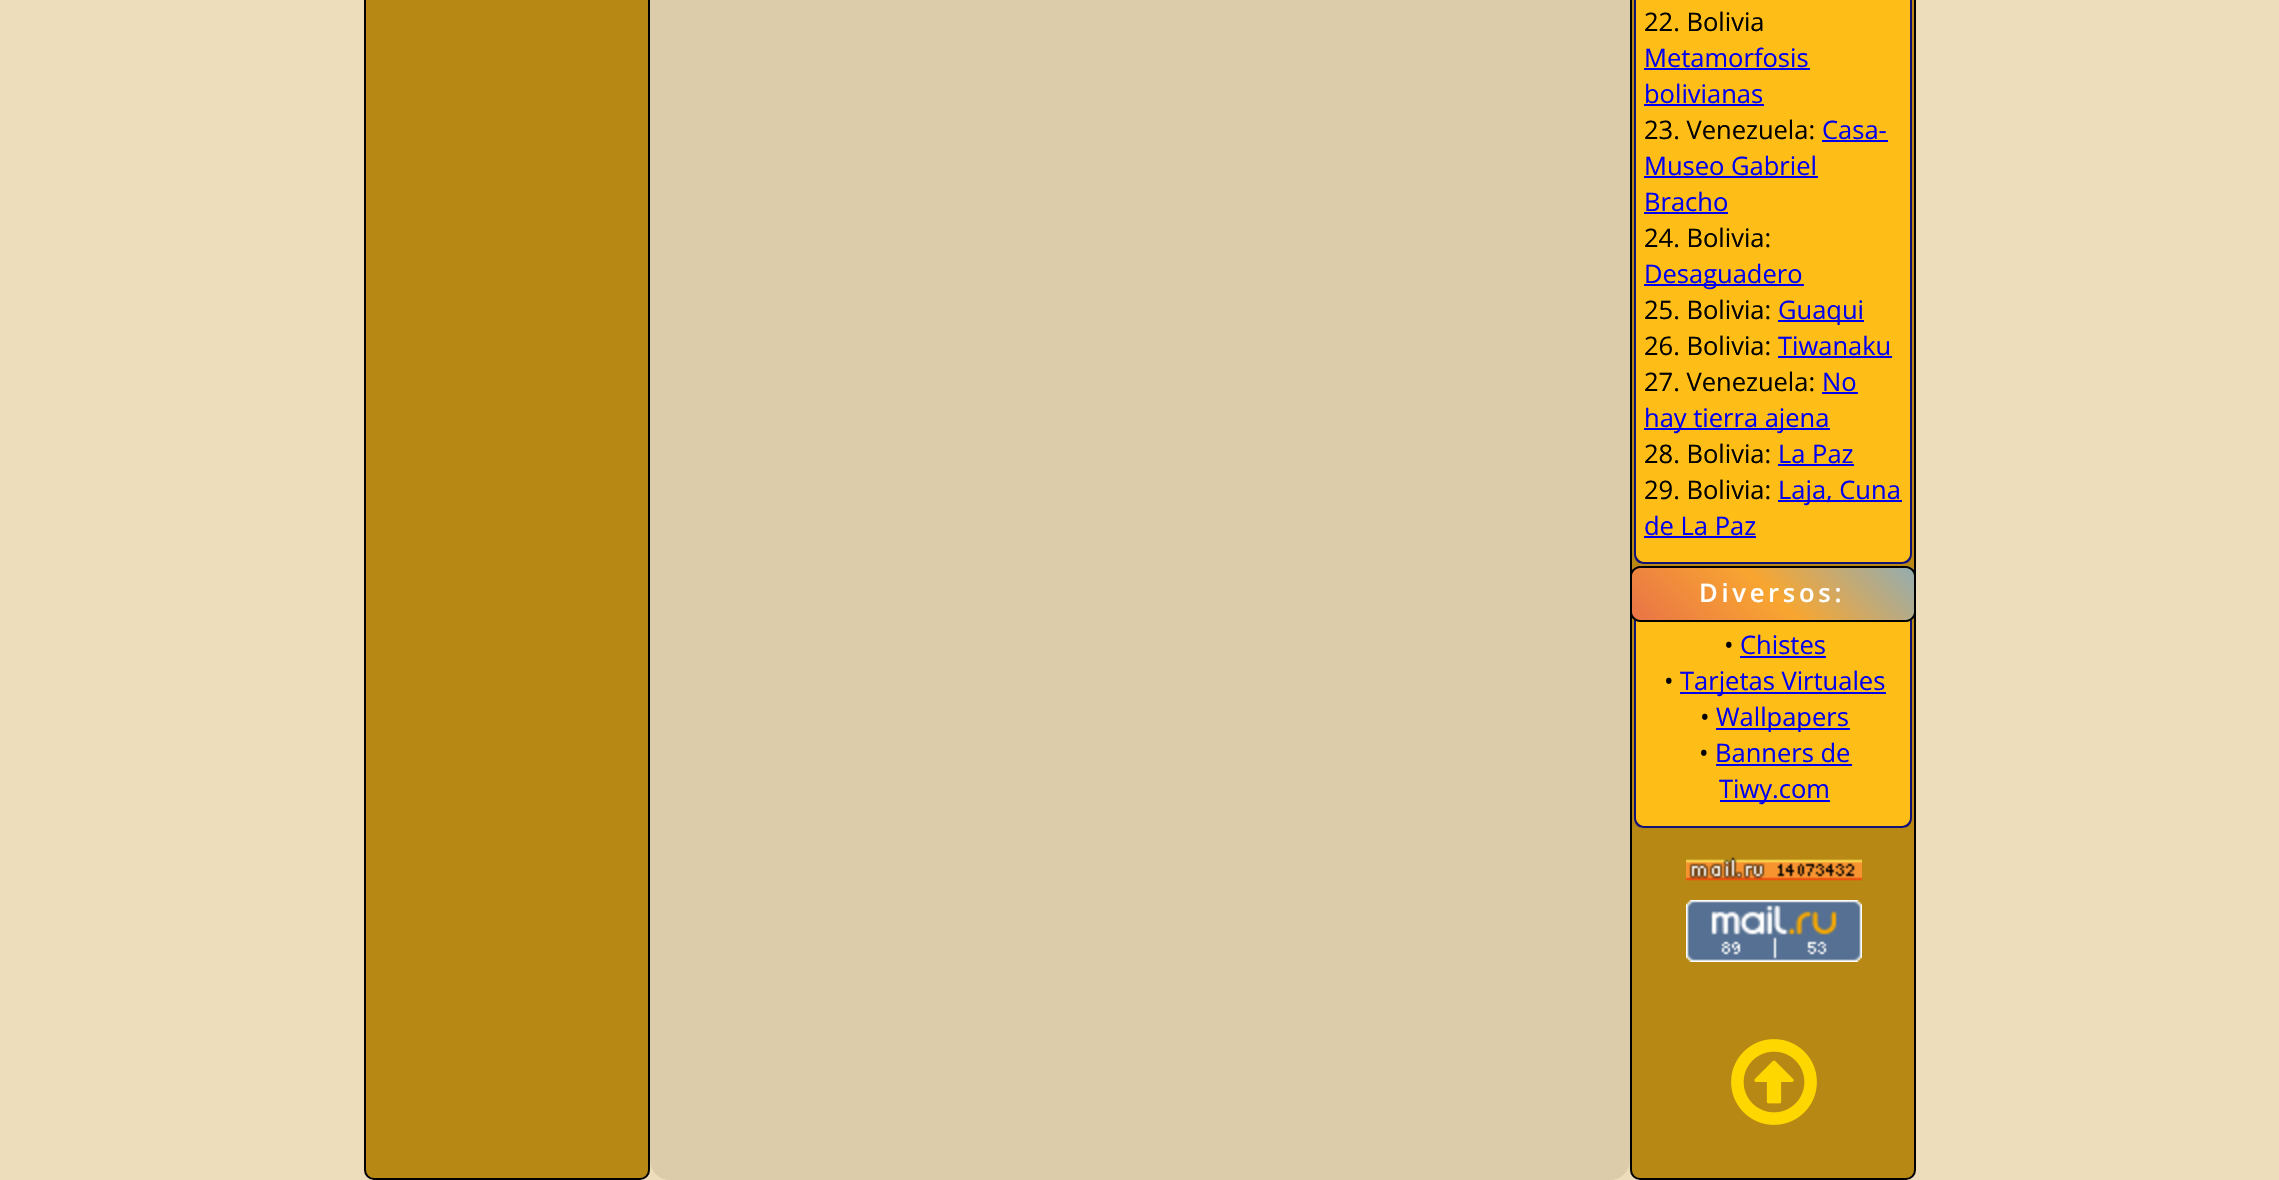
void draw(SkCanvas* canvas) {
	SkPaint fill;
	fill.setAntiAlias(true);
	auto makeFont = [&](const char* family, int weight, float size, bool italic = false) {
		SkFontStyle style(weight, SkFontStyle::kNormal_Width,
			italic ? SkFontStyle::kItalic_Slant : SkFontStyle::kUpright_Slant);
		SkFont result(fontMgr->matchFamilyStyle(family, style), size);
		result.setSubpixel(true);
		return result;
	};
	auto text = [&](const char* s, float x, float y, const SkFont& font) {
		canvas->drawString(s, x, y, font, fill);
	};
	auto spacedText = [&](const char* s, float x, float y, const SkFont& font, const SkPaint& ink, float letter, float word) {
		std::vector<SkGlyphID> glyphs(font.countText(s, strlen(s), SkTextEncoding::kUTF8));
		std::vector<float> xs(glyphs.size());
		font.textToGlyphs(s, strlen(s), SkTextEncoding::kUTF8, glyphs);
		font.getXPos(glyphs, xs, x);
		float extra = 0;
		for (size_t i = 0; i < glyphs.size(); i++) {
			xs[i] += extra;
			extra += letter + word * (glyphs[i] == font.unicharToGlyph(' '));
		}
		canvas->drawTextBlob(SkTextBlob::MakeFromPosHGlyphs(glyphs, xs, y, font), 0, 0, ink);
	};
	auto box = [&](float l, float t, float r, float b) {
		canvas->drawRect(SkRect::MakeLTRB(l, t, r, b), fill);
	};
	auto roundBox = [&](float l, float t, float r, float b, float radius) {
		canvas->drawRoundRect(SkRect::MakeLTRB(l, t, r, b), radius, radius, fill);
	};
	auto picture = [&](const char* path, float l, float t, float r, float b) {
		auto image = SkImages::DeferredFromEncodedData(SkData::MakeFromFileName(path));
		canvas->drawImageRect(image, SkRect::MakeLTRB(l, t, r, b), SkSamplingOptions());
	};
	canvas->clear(0xFFEEDDBB);
	fill.setColor(0xFFB78813);
	canvas->drawRoundRect(SkRect::MakeLTRB(365, -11, 649, 1179), 9, 9, fill);
	fill.setStyle(SkPaint::kStroke_Style);
	fill.setStrokeWidth(2);
	fill.setColor(0xFF000000);
	canvas->drawRoundRect(SkRect::MakeLTRB(365, -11, 649, 1179), 9, 9, fill);
	fill.setStyle(SkPaint::kFill_Style);
	fill.setColor(0xFFDDCCAA);
	roundBox(650, -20, 1630, 1180, 20);
	fill.setColor(0xFFB78813);
	canvas->drawRoundRect(SkRect::MakeLTRB(1631, -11, 1915, 1179), 9, 9, fill);
	fill.setStyle(SkPaint::kStroke_Style);
	fill.setColor(0xFF000000);
	canvas->drawRoundRect(SkRect::MakeLTRB(1631, -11, 1915, 1179), 9, 9, fill);
	fill.setStyle(SkPaint::kFill_Style);
	fill.setColor(0xFFFFBD18);
	canvas->drawPath(SkPathBuilder().moveTo(1634, -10).lineTo(1912, -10).lineTo(1912, 554).cubicTo(1912, 559.5f, 1907.5f, 564, 1902, 564).lineTo(1644, 564).cubicTo(1638.5f, 564, 1634, 559.5f, 1634, 554).close().detach(), fill);
	fill.setColor(0xFF111177);
	canvas->drawPath(SkPathBuilder(SkPathFillType::kEvenOdd).moveTo(1634, -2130).lineTo(1912, -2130).lineTo(1912, 554).cubicTo(1912, 560, 1908, 564, 1902, 564).lineTo(1644, 564).cubicTo(1638, 564, 1634, 560, 1634, 554).close().moveTo(1636, -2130).lineTo(1910, -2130).lineTo(1910, 554).cubicTo(1910, 558, 1906, 562, 1902, 562).lineTo(1644, 562).cubicTo(1640, 562, 1636, 558, 1636, 554).close().detach(), fill);
	fill.setColor(0xFF0000EE);
	box(1644, 68, 1810, 70);
	box(1644, 104, 1764, 106);
	box(1822, 140, 1888, 142);
	box(1644, 176, 1818, 178);
	box(1644, 212, 1728, 214);
	box(1644, 284, 1804, 286);
	box(1778, 320, 1864, 322);
	box(1778, 356, 1892, 358);
	box(1822, 392, 1858, 394);
	box(1644, 428, 1830, 430);
	box(1778, 464, 1854, 466);
	box(1778, 500, 1902, 502);
	box(1644, 536, 1756, 538);
	canvas->save();
	canvas->clipPath(SkPathBuilder().moveTo(1640, 566).lineTo(1906, 566).cubicTo(1911.5f, 566, 1916, 570.5f, 1916, 576).lineTo(1916, 612).cubicTo(1916, 617.5f, 1911.5f, 622, 1906, 622).lineTo(1640, 622).cubicTo(1634.5f, 622, 1630, 617.5f, 1630, 612).lineTo(1630, 576).cubicTo(1630, 570.5f, 1634.5f, 566, 1640, 566).close().detach(), true);
	{
		const SkColor colors[] = {0xFFE05555, 0xFFF8A630, 0xFF58B1FF};
		const float stops[] = {0, 0.5f, 1};
		const SkPoint ends[] = {{1639, 676}, {1907, 408}};
		fill.setShader(SkGradientShader::MakeLinear(ends, colors, stops, 3, SkTileMode::kClamp));
		fill.setAlpha(255);
	}
	box(1632, 566, 1914, 568);
	canvas->restore();
	fill.setShader(nullptr);
	fill.setColor(0xFFFFBD18);
	canvas->drawPath(SkPathBuilder().moveTo(1634, 618).lineTo(1912, 618).lineTo(1912, 818).cubicTo(1912, 823.5f, 1907.5f, 828, 1902, 828).lineTo(1644, 828).cubicTo(1638.5f, 828, 1634, 823.5f, 1634, 818).close().detach(), fill);
	fill.setColor(0xFF111177);
	canvas->drawPath(SkPathBuilder(SkPathFillType::kEvenOdd).moveTo(1634, 618).lineTo(1912, 618).lineTo(1912, 818).cubicTo(1912, 824, 1908, 828, 1902, 828).lineTo(1644, 828).cubicTo(1638, 828, 1634, 824, 1634, 818).close().moveTo(1636, 618).lineTo(1910, 618).lineTo(1910, 818).cubicTo(1910, 822, 1906, 826, 1902, 826).lineTo(1644, 826).cubicTo(1640, 826, 1636, 822, 1636, 818).close().detach(), fill);
	canvas->save();
	canvas->clipPath(SkPathBuilder().moveTo(1640, 566).lineTo(1906, 566).cubicTo(1911.5f, 566, 1916, 570.5f, 1916, 576).lineTo(1916, 612).cubicTo(1916, 617.5f, 1911.5f, 622, 1906, 622).lineTo(1640, 622).cubicTo(1634.5f, 622, 1630, 617.5f, 1630, 612).lineTo(1630, 576).cubicTo(1630, 570.5f, 1634.5f, 566, 1640, 566).close().detach(), true);
	{
		const SkColor colors[] = {0xFFE05555, 0xFFF8A630, 0xFF58B1FF};
		const float stops[] = {0, 0.5f, 1};
		const SkPoint ends[] = {{1639, 728}, {1907, 460}};
		fill.setShader(SkGradientShader::MakeLinear(ends, colors, stops, 3, SkTileMode::kClamp));
		fill.setAlpha(255);
	}
	box(1632, 568, 1914, 620);
	canvas->restore();
	fill.setShader(nullptr);
	fill.setColor(0xFF000000);
	canvas->drawPath(SkPathBuilder(SkPathFillType::kEvenOdd).moveTo(1914, 618).cubicTo(1912, 620, 1909, 622, 1906, 622).lineTo(1640, 622).cubicTo(1637, 622, 1634, 620, 1632, 618).lineTo(1632, 612).cubicTo(1632, 616, 1636, 620, 1640, 620).lineTo(1906, 620).cubicTo(1910, 620, 1914, 616, 1914, 612).close().moveTo(1640, 566).cubicTo(1637, 566, 1634, 568, 1632, 570).lineTo(1632, 576).cubicTo(1632, 572, 1636, 568, 1640, 568).lineTo(1906, 568).cubicTo(1910, 568, 1914, 572, 1914, 576).lineTo(1914, 570).cubicTo(1912, 568, 1909, 566, 1906, 566).close().detach(), fill);
	fill.setColor(0xFF0000EE);
	box(1740, 656, 1826, 658);
	box(1680, 692, 1886, 694);
	box(1716, 728, 1850, 730);
	box(1716, 764, 1852, 766);
	box(1720, 800, 1830, 802);
	picture("image0.png", 1686, 857, 1862, 881);
	picture("image1.png", 1686, 900, 1862, 962);
	picture("image2.png", 1731, 1039, 1817, 1125);
	auto font1 = makeFont("Open Sans", 400, 25.5f);
	fill.setColor(0xFF000000);
	text("22. Bolivia", 1644, 31, font1);
	fill.setColor(0xFF0000EE);
	text("Metamorfosis", 1644, 67, font1);
	text("bolivianas", 1644, 103, font1);
	fill.setColor(0xFF000000);
	text("23. Venezuela:", 1644, 139, font1);
	fill.setColor(0xFF0000EE);
	text("Casa-", 1822, 139, font1);
	text("Museo Gabriel", 1644, 175, font1);
	text("Bracho", 1644, 211, font1);
	fill.setColor(0xFF000000);
	text("24. Bolivia:", 1644, 247, font1);
	fill.setColor(0xFF0000EE);
	text("Desaguadero", 1644, 283, font1);
	fill.setColor(0xFF000000);
	text("25. Bolivia:", 1644, 319, font1);
	fill.setColor(0xFF0000EE);
	text("Guaqui", 1778, 319, font1);
	fill.setColor(0xFF000000);
	text("26. Bolivia:", 1644, 355, font1);
	fill.setColor(0xFF0000EE);
	text("Tiwanaku", 1778, 355, font1);
	fill.setColor(0xFF000000);
	text("27. Venezuela:", 1644, 391, font1);
	fill.setColor(0xFF0000EE);
	text("No", 1822, 391, font1);
	text("hay tierra ajena", 1644, 427, font1);
	fill.setColor(0xFF000000);
	text("28. Bolivia:", 1644, 463, font1);
	fill.setColor(0xFF0000EE);
	text("La Paz", 1778, 463, font1);
	fill.setColor(0xFF000000);
	text("29. Bolivia:", 1644, 499, font1);
	fill.setColor(0xFF0000EE);
	text("Laja, Cuna", 1778, 499, font1);
	text("de La Paz", 1644, 535, font1);
	auto font2 = makeFont("Open Sans", 600, 25.5f);
	fill.setColor(0xFFFFFFFF);
	spacedText("Diversos:", 1699, 602, font2, fill, 3.75f, 0);
	fill.setColor(0xFF000000);
	text("•", 1724, 654, font1);
	fill.setColor(0xFF0000EE);
	text("Chistes", 1740, 654, font1);
	fill.setColor(0xFF000000);
	text("•", 1664, 690, font1);
	fill.setColor(0xFF0000EE);
	text("Tarjetas Virtuales", 1680, 690, font1);
	fill.setColor(0xFF000000);
	text("•", 1700, 726, font1);
	fill.setColor(0xFF0000EE);
	text("Wallpapers", 1716, 726, font1);
	fill.setColor(0xFF000000);
	text("•", 1699, 762, font1);
	fill.setColor(0xFF0000EE);
	text("Banners de", 1715, 762, font1);
	text("Tiwy.com", 1719, 798, font1);
}
